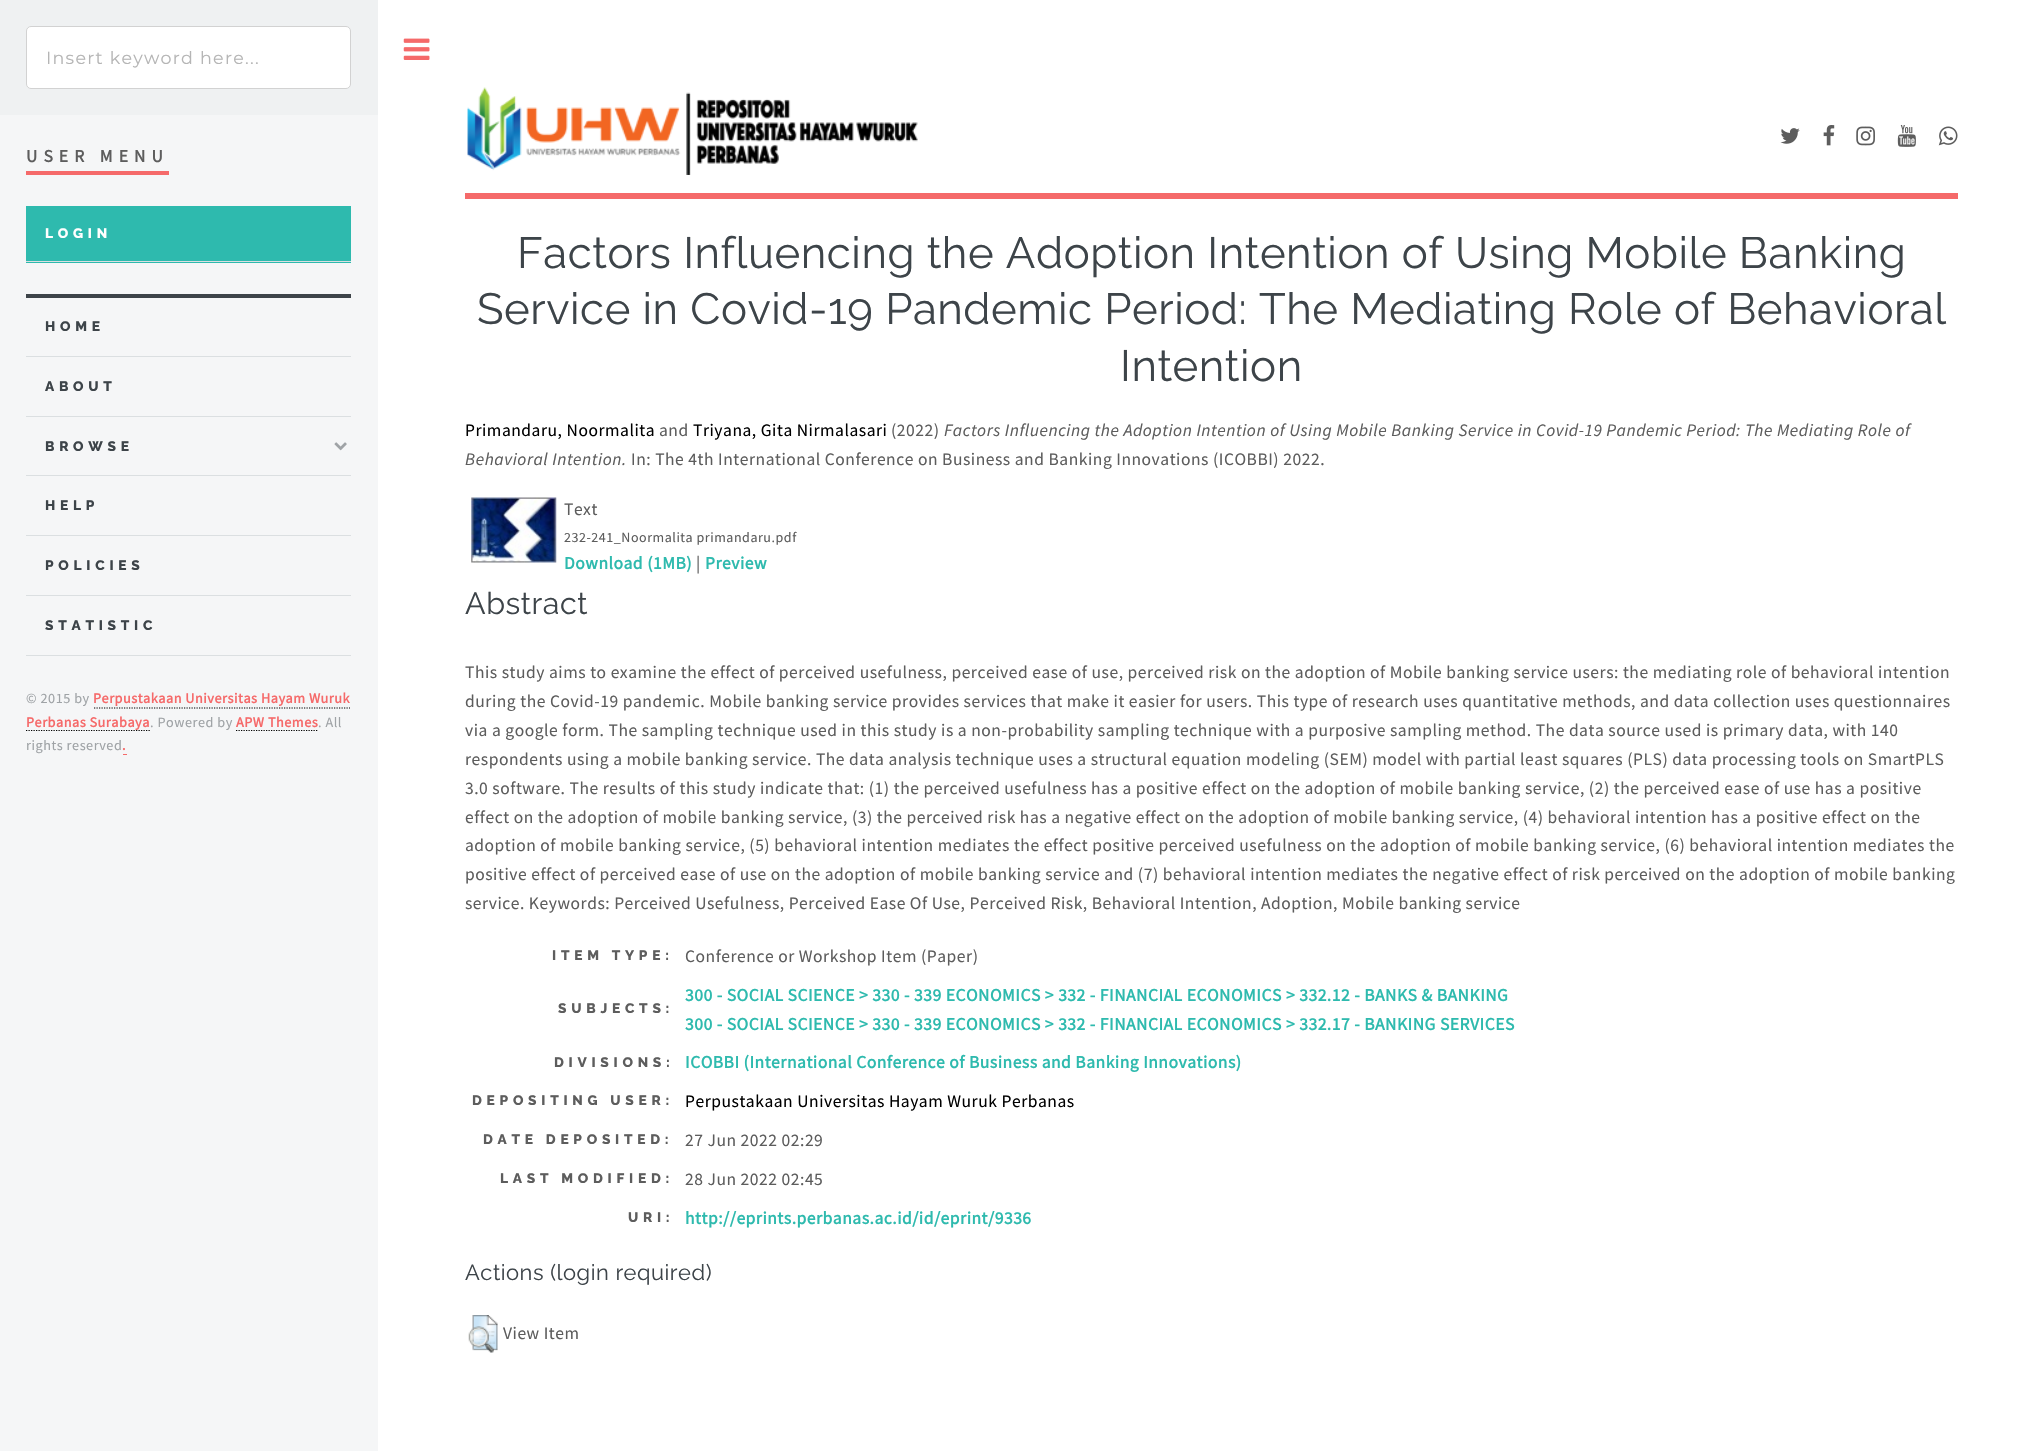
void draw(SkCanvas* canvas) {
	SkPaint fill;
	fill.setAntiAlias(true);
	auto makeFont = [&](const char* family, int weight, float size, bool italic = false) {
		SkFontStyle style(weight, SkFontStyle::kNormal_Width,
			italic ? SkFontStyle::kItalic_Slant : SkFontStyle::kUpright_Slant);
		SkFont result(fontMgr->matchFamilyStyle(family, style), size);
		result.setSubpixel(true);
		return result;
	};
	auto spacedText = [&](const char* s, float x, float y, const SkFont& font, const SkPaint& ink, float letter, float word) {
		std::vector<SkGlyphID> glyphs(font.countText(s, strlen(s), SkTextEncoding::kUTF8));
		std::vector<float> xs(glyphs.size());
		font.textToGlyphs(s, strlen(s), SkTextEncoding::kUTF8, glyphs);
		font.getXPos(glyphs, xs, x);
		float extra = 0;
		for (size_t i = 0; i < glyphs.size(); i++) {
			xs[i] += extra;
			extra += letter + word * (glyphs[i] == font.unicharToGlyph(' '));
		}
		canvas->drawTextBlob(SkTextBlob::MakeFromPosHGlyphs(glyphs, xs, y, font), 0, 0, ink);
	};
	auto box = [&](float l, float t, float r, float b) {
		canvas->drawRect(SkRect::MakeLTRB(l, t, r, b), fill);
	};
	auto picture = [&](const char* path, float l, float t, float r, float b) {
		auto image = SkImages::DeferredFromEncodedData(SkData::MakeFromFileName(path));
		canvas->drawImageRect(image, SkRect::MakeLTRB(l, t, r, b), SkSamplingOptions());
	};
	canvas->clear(0xFFFFFFFF);
	fill.setColor(0xFFF5F6F7);
	box(0, 115, 378, 1451);
	fill.setColor(0xFFEFF1F2);
	box(0, 0, 378, 115);
	fill.setColor(0xFFFFFFFF);
	canvas->drawRoundRect(SkRect::MakeLTRB(26.5f, 26.5f, 350.5f, 88.5f), 4.5f, 4.5f, fill);
	fill.setStyle(SkPaint::kStroke_Style);
	fill.setStrokeWidth(1);
	fill.setColor(0xFFD2D2D2);
	canvas->drawRoundRect(SkRect::MakeLTRB(26.5f, 26.5f, 350.5f, 88.5f), 4.5f, 4.5f, fill);
	fill.setStyle(SkPaint::kFill_Style);
	fill.setColor(0xFFF56A6A);
	box(26, 171, 169, 175);
	fill.setColor(0xFF2EBAAE);
	box(26, 206, 351, 263);
	fill.setColor(0xFFDBDFE1);
	box(26, 261, 351, 262);
	fill.setColor(0xFF3D4449);
	box(26, 294, 351, 298);
	fill.setColor(0xFFDBDFE1);
	box(26, 356, 351, 357);
	box(26, 416, 351, 417);
	picture("image0.png", 334, 442, 347, 451);
	box(26, 475, 351, 476);
	box(26, 535, 351, 536);
	box(26, 595, 351, 596);
	box(26, 655, 351, 656);
	fill.setStyle(SkPaint::kStroke_Style);
	fill.setStrokeWidth(1.2f);
	fill.setColor(0xFF000000);
	fill.setPathEffect(SkDashPathEffect::Make({{1.25f, 1.25f}}, 0));
	canvas->drawPath(SkPathBuilder().moveTo(94, 708).lineTo(350, 708).detach(), fill);
	fill.setPathEffect(nullptr);
	fill.setPathEffect(SkDashPathEffect::Make({{1.25f, 1.25f}}, 0));
	canvas->drawPath(SkPathBuilder().moveTo(26, 730.5f).lineTo(150, 730.5f).detach(), fill);
	fill.setPathEffect(nullptr);
	fill.setPathEffect(SkDashPathEffect::Make({{1.25f, 1.25f}}, 0));
	canvas->drawPath(SkPathBuilder().moveTo(236, 730.5f).lineTo(317.5f, 730.5f).detach(), fill);
	fill.setPathEffect(nullptr);
	fill.setStyle(SkPaint::kFill_Style);
	fill.setColor(0xFFF56A6A);
	box(123, 754, 127, 755);
	picture("image1.png", 403, 38, 430, 60);
	box(465, 193, 1958, 199);
	picture("image2.png", 467, 87, 918, 175);
	picture("image3.png", 1780, 128, 1800, 144);
	picture("image4.png", 1823, 125, 1835, 146);
	picture("image5.png", 1856, 126, 1875, 146);
	picture("image6.png", 1897, 125, 1916, 147);
	picture("image7.png", 1938, 126, 1958, 146);
	picture("image8.png", 471, 497, 557, 563);
	picture("image9.png", 468, 1315, 498, 1353);
	auto font1 = makeFont("Montserrat", 400, 17.5f);
	fill.setColor(0xFFB5B5B5);
	spacedText("Insert keyword here...", 46, 64, font1, fill, 1.25f, 0);
	auto font2 = makeFont("Source Sans Pro", 700, 17.5f);
	fill.setColor(0xFF5D5D5D);
	spacedText("USER MENU", 26, 162, font2, fill, 6.1f, 0);
	auto font3 = makeFont("Raleway", 800, 13.75f);
	fill.setColor(0xFFFFFFFF);
	spacedText("LOGIN", 45, 238, font3, fill, 4.75f, 0);
	fill.setColor(0xFF3D4449);
	spacedText("HOME", 45, 331, font3, fill, 4.75f, 0);
	spacedText("ABOUT", 45, 391, font3, fill, 4.75f, 0);
	spacedText("BROWSE", 45, 451, font3, fill, 4.75f, 0);
	spacedText("HELP", 45, 510, font3, fill, 4.75f, 0);
	spacedText("POLICIES", 45, 570, font3, fill, 4.75f, 0);
	spacedText("STATISTIC", 45, 630, font3, fill, 4.75f, 0);
	auto font4 = makeFont("Source Sans Pro", 400, 14.2f);
	fill.setColor(0xFF9FA3A6);
	spacedText("© 2015 by", 26, 703, font4, fill, 0.53f, 0);
	auto font5 = makeFont("Source Sans Pro", 700, 14.2f);
	fill.setColor(0xFFF56A6A);
	spacedText("Perpustakaan Universitas Hayam Wuruk", 93, 703, font5, fill, 0.53f, 0);
	spacedText("Perbanas Surabaya", 26, 727, font5, fill, 0.53f, 0);
	fill.setColor(0xFF9FA3A6);
	spacedText(". Powered by", 150, 727, font4, fill, 0.53f, 0);
	fill.setColor(0xFFF56A6A);
	spacedText("APW Themes", 236, 727, font5, fill, 0.53f, 0);
	fill.setColor(0xFF9FA3A6);
	spacedText(". All", 318, 727, font4, fill, 0.53f, 0);
	spacedText("rights reserved", 26, 750, font4, fill, 0.53f, 0);
	fill.setColor(0xFFF56A6A);
	spacedText(".", 122, 750, font5, fill, 0.53f, 0);
	auto font6 = makeFont("Raleway", 400, 43.75f);
	fill.setColor(0xFF3D4449);
	spacedText("Factors Influencing the Adoption Intention of Using Mobile Banking", 517, 268, font6, fill, 0.53f, 0);
	spacedText("Service in Covid-19 Pandemic Period: The Mediating Role of Behavioral", 477, 324, font6, fill, 0.53f, 0);
	spacedText("Intention", 1120, 381, font6, fill, 0.53f, 0);
	auto font7 = makeFont("Source Sans Pro", 400, 17.5f);
	fill.setColor(0xFF000000);
	spacedText("Primandaru, Noormalita", 465, 436, font7, fill, 0.53f, 0);
	fill.setColor(0xFF5D5D5D);
	spacedText("and", 659, 436, font7, fill, 0.53f, 0);
	fill.setColor(0xFF000000);
	spacedText("Triyana, Gita Nirmalasari", 693, 436, font7, fill, 0.53f, 0);
	fill.setColor(0xFF5D5D5D);
	spacedText("(2022)", 891, 436, font7, fill, 0.53f, 0);
	auto font8 = makeFont("Source Sans Pro", 400, 17.5f, true);
	spacedText("Factors Influencing the Adoption Intention of Using Mobile Banking Service in Covid-19 Pandemic Period: The Mediating Role of", 944, 436, font8, fill, 0.53f, 0);
	spacedText("Behavioral Intention.", 465, 465, font8, fill, 0.53f, 0);
	spacedText("In: The 4th International Conference on Business and Banking Innovations (ICOBBI) 2022.", 631, 465, font7, fill, 0.53f, 0);
	spacedText("Text", 564, 515, font7, fill, 0.53f, 0);
	auto font9 = makeFont("Source Sans Pro", 400, 14);
	spacedText("232-241_Noormalita primandaru.pdf", 564, 542, font9, fill, 0.53f, 0);
	fill.setColor(0xFF2EBAAE);
	spacedText("Download (1MB)", 564, 569, font2, fill, 0.53f, 0);
	fill.setColor(0xFF5D5D5D);
	spacedText("|", 696, 569, font7, fill, 0.53f, 0);
	fill.setColor(0xFF2EBAAE);
	spacedText("Preview", 705, 569, font2, fill, 0.53f, 0);
	auto font10 = makeFont("Raleway", 400, 30.5f);
	fill.setColor(0xFF3D4449);
	spacedText("Abstract", 465, 614, font10, fill, 0.53f, 0);
	fill.setColor(0xFF5D5D5D);
	spacedText("This study aims to examine the effect of perceived usefulness, perceived ease of use, perceived risk on the adoption of Mobile banking service users: the mediating role of behavioral intention", 465, 678, font7, fill, 0.53f, 0);
	spacedText("during the Covid-19 pandemic. Mobile banking service provides services that make it easier for users. This type of research uses quantitative methods, and data collection uses questionnaires", 465, 707, font7, fill, 0.53f, 0);
	spacedText("via a google form. The sampling technique used in this study is a non-probability sampling technique with a purposive sampling method. The data source used is primary data, with 140", 465, 736, font7, fill, 0.53f, 0);
	spacedText("respondents using a mobile banking service. The data analysis technique uses a structural equation modeling (SEM) model with partial least squares (PLS) data processing tools on SmartPLS", 465, 765, font7, fill, 0.53f, 0);
	spacedText("3.0 software. The results of this study indicate that: (1) the perceived usefulness has a positive effect on the adoption of mobile banking service, (2) the perceived ease of use has a positive", 465, 794, font7, fill, 0.53f, 0);
	spacedText("effect on the adoption of mobile banking service, (3) the perceived risk has a negative effect on the adoption of mobile banking service, (4) behavioral intention has a positive effect on the", 465, 823, font7, fill, 0.53f, 0);
	spacedText("adoption of mobile banking service, (5) behavioral intention mediates the effect positive perceived usefulness on the adoption of mobile banking service, (6) behavioral intention mediates the", 465, 851, font7, fill, 0.53f, 0);
	spacedText("positive effect of perceived ease of use on the adoption of mobile banking service and (7) behavioral intention mediates the negative effect of risk perceived on the adoption of mobile banking", 465, 880, font7, fill, 0.53f, 0);
	spacedText("service. Keywords: Perceived Usefulness, Perceived Ease Of Use, Perceived Risk, Behavioral Intention, Adoption, Mobile banking service", 465, 909, font7, fill, 0.53f, 0);
	spacedText("ITEM TYPE:", 552, 960, font3, fill, 4.75f, 0);
	spacedText("Conference or Workshop Item (Paper)", 685, 962, font7, fill, 0.53f, 0);
	spacedText("SUBJECTS:", 558, 1013, font3, fill, 4.75f, 0);
	fill.setColor(0xFF2EBAAE);
	spacedText("300 - SOCIAL SCIENCE > 330 - 339 ECONOMICS > 332 - FINANCIAL ECONOMICS > 332.12 - BANKS & BANKING", 685, 1001, font2, fill, 0.53f, 0);
	spacedText("300 - SOCIAL SCIENCE > 330 - 339 ECONOMICS > 332 - FINANCIAL ECONOMICS > 332.17 - BANKING SERVICES", 685, 1030, font2, fill, 0.53f, 0);
	fill.setColor(0xFF5D5D5D);
	spacedText("DIVISIONS:", 554, 1067, font3, fill, 4.75f, 0);
	fill.setColor(0xFF2EBAAE);
	spacedText("ICOBBI (International Conference of Business and Banking Innovations)", 685, 1068, font2, fill, 0.53f, 0);
	fill.setColor(0xFF5D5D5D);
	spacedText("DEPOSITING USER:", 472, 1105, font3, fill, 4.75f, 0);
	fill.setColor(0xFF000000);
	spacedText("Perpustakaan Universitas Hayam Wuruk Perbanas", 685, 1107, font7, fill, 0.53f, 0);
	fill.setColor(0xFF5D5D5D);
	spacedText("DATE DEPOSITED:", 483, 1144, font3, fill, 4.75f, 0);
	spacedText("27 Jun 2022 02:29", 685, 1146, font7, fill, 0.53f, 0);
	spacedText("LAST MODIFIED:", 500, 1183, font3, fill, 4.75f, 0);
	spacedText("28 Jun 2022 02:45", 685, 1185, font7, fill, 0.53f, 0);
	spacedText("URI:", 628, 1222, font3, fill, 4.75f, 0);
	fill.setColor(0xFF2EBAAE);
	spacedText("http://eprints.perbanas.ac.id/id/eprint/9336", 685, 1224, font2, fill, 0.53f, 0);
	auto font11 = makeFont("Raleway", 400, 21.9f);
	fill.setColor(0xFF3D4449);
	spacedText("Actions (login required)", 465, 1280, font11, fill, 0.53f, 0);
	fill.setColor(0xFF5D5D5D);
	spacedText("View Item", 503, 1339, font7, fill, 0.53f, 0);
}
